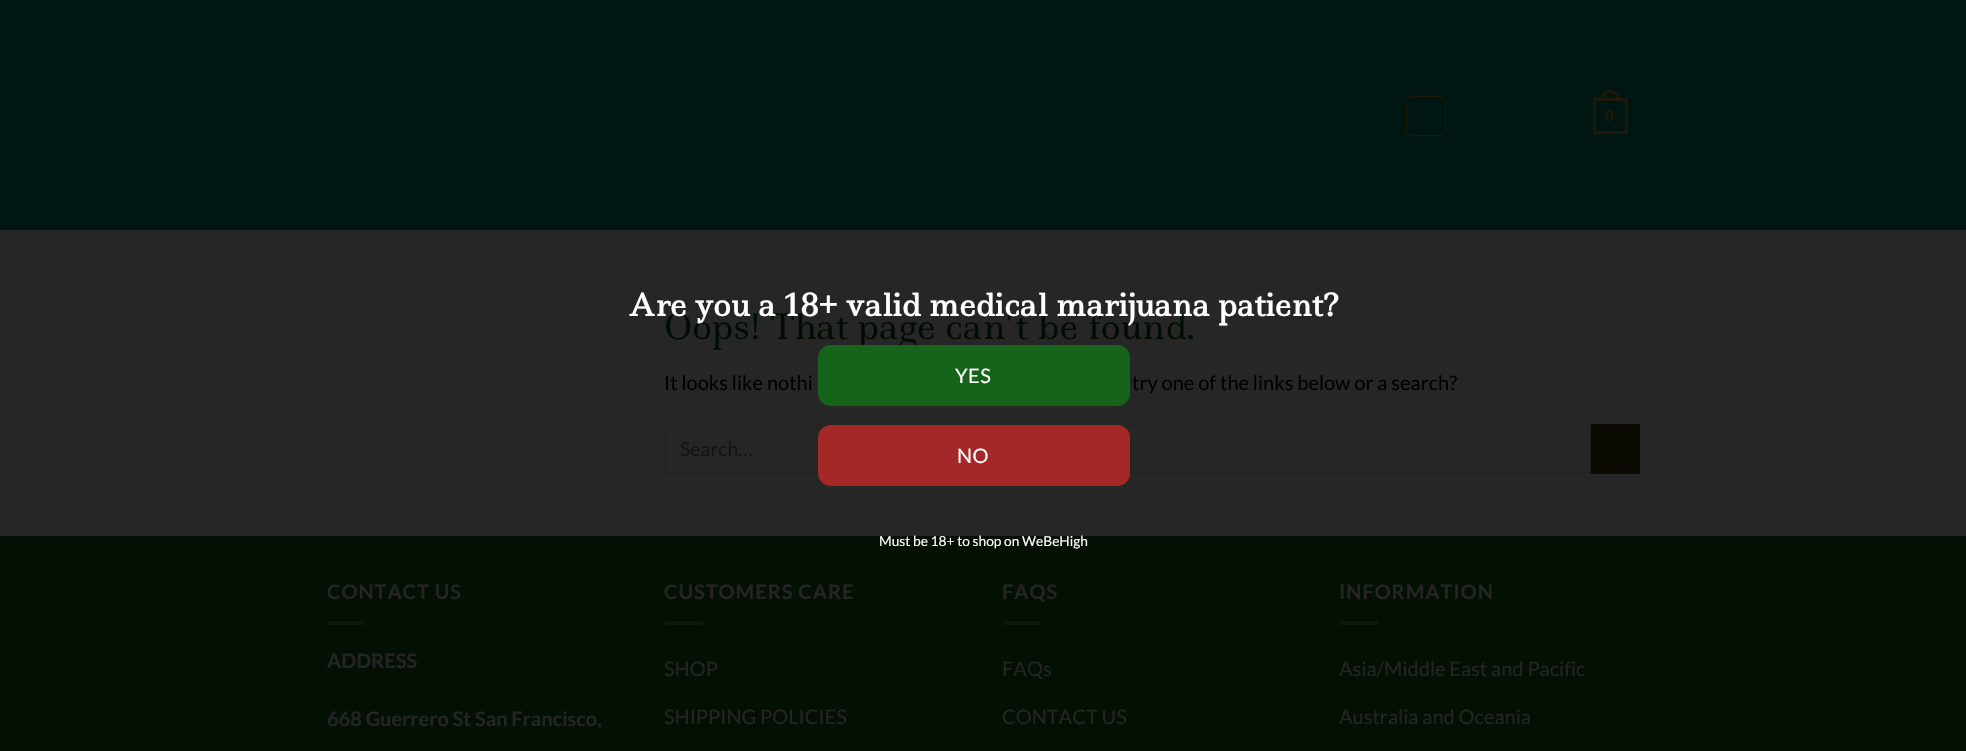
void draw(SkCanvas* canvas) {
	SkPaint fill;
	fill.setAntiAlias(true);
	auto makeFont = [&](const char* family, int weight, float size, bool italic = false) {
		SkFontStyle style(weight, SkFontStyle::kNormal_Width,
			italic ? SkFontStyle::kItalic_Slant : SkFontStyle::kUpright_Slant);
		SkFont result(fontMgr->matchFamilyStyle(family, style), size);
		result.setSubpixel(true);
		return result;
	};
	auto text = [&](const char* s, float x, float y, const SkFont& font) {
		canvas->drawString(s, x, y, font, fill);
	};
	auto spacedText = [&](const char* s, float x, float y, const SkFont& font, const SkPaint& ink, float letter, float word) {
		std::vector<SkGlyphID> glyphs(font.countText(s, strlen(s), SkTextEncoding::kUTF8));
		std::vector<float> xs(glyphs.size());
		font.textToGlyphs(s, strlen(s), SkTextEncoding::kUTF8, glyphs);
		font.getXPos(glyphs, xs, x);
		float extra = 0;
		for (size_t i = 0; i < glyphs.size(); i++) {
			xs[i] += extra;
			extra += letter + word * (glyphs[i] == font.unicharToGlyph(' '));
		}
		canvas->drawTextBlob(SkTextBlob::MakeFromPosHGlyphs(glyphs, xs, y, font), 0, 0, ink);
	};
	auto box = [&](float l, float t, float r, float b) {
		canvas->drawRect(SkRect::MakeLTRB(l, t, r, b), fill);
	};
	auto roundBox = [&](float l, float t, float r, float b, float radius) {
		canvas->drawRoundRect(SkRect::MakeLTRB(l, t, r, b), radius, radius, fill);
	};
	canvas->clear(0xFF262626);
	fill.setColor(0xFF001613);
	box(0, 0, 1966, 230);
	fill.setColor(0xFF041815);
	box(1394, 98, 1395, 135);
	fill.setStyle(SkPaint::kStroke_Style);
	fill.setStrokeWidth(1);
	fill.setColor(0xFF211708);
	canvas->drawRoundRect(SkRect::MakeLTRB(1406.5f, 96.5f, 1445.5f, 135.5f), 5.5f, 5.5f, fill);
	fill.setStyle(SkPaint::kFill_Style);
	fill.setColor(0xFF041815);
	box(1458, 98, 1459, 135);
	fill.setStyle(SkPaint::kStroke_Style);
	fill.setStrokeWidth(3);
	fill.setColor(0xFF211708);
	canvas->drawRect(SkRect::MakeLTRB(1594.5f, 99.5f, 1626.5f, 132.5f), fill);
	fill.setStyle(SkPaint::kFill_Style);
	canvas->drawPath(SkPathBuilder(SkPathFillType::kEvenOdd).moveTo(1610, 90).cubicTo(1616, 90, 1619, 94.5f, 1619, 100).lineTo(1601, 100).cubicTo(1601, 94.5f, 1604, 90, 1610, 90).close().moveTo(1610, 92.5f).cubicTo(1614.5f, 92.5f, 1616, 96, 1616, 100).lineTo(1604, 100).cubicTo(1604, 96, 1605.5f, 92.5f, 1610, 92.5f).close().detach(), fill);
	fill.setStyle(SkPaint::kStroke_Style);
	fill.setStrokeWidth(1);
	fill.setColor(0xFF212121);
	canvas->drawRect(SkRect::MakeLTRB(665.5f, 425.5f, 1590.5f, 472.5f), fill);
	fill.setStyle(SkPaint::kFill_Style);
	fill.setColor(0xFF0B0B03);
	canvas->drawRect(SkRect::MakeLTRB(1591.5f, 424.5f, 1639.5f, 473.5f), fill);
	fill.setStyle(SkPaint::kStroke_Style);
	fill.setColor(0xFF0A0B03);
	canvas->drawRect(SkRect::MakeLTRB(1591.5f, 424.5f, 1639.5f, 473.5f), fill);
	fill.setStyle(SkPaint::kFill_Style);
	fill.setColor(0xFF051005);
	box(0, 537, 1966, 751);
	fill.setColor(0xFF041005);
	box(0, 536, 1966, 537);
	fill.setColor(0xFF0F170F);
	box(328, 621, 365, 625);
	box(665, 621, 703, 625);
	fill.setColor(0xFF071208);
	box(665, 691, 965, 692);
	box(665, 740, 965, 741);
	fill.setColor(0xFF0F170F);
	box(1003, 621, 1040, 625);
	fill.setColor(0xFF071208);
	box(1003, 691, 1303, 692);
	box(1003, 740, 1303, 741);
	fill.setColor(0xFF0F170F);
	box(1340, 621, 1378, 625);
	fill.setColor(0xFF071208);
	box(1340, 691, 1640, 692);
	box(1340, 740, 1640, 741);
	fill.setColor(0xFFA42828);
	roundBox(818, 425, 1130, 486, 13);
	auto font1 = makeFont("Liberation Sans", 700, 16);
	fill.setColor(0xFF211708);
	text("0", 1605, 121, font1);
	auto font2 = makeFont("Ledger", 400, 34);
	fill.setColor(0xFF010D03);
	text("Oops! That page can’t be found.", 664, 339, font2);
	auto font3 = makeFont("Lato", 400, 20);
	fill.setColor(0xFF000000);
	text("It looks like nothi", 664, 390, font3);
	text("try one of the links below or a search?", 1132, 390, font3);
	auto font4 = makeFont("Lato", 400, 19.5f);
	fill.setColor(0xFF121212);
	text("Search…", 680, 456, font4);
	auto font5 = makeFont("Lato", 700, 20);
	fill.setColor(0xFF242424);
	spacedText("CONTACT US", 327, 599, font5, fill, 1, 0);
	text("ADDRESS", 327, 668, font5);
	text("668 Guerrero St San Francisco,", 327, 726, font5);
	spacedText("CUSTOMERS CARE", 664, 599, font5, fill, 1, 0);
	text("SHOP", 664, 676, font3);
	text("SHIPPING POLICIES", 664, 724, font3);
	spacedText("FAQS", 1002, 599, font5, fill, 1, 0);
	text("FAQs", 1002, 676, font3);
	text("CONTACT US", 1002, 724, font3);
	spacedText("INFORMATION", 1339, 599, font5, fill, 1, 0);
	text("Asia/Middle East and Pacific", 1339, 676, font3);
	text("Australia and Oceania", 1339, 724, font3);
	auto font6 = makeFont("Ledger", 700, 30);
	fill.setColor(0xFFFFFFFF);
	text("Are you a 18+ valid medical marijuana patient?", 628, 316, font6);
	fill.setColor(0xFF16641B);
	roundBox(818, 345, 1130, 406, 13);
	fill.setColor(0xFFFFFFFF);
	spacedText("YES", 955, 383, font3, fill, 0.5f, 0);
	spacedText("NO", 957, 463, font3, fill, 0.5f, 0);
	auto font7 = makeFont("Lato", 400, 13.75f);
	text("Must be 18+ to shop on WeBeHigh", 879, 546, font7);
}
